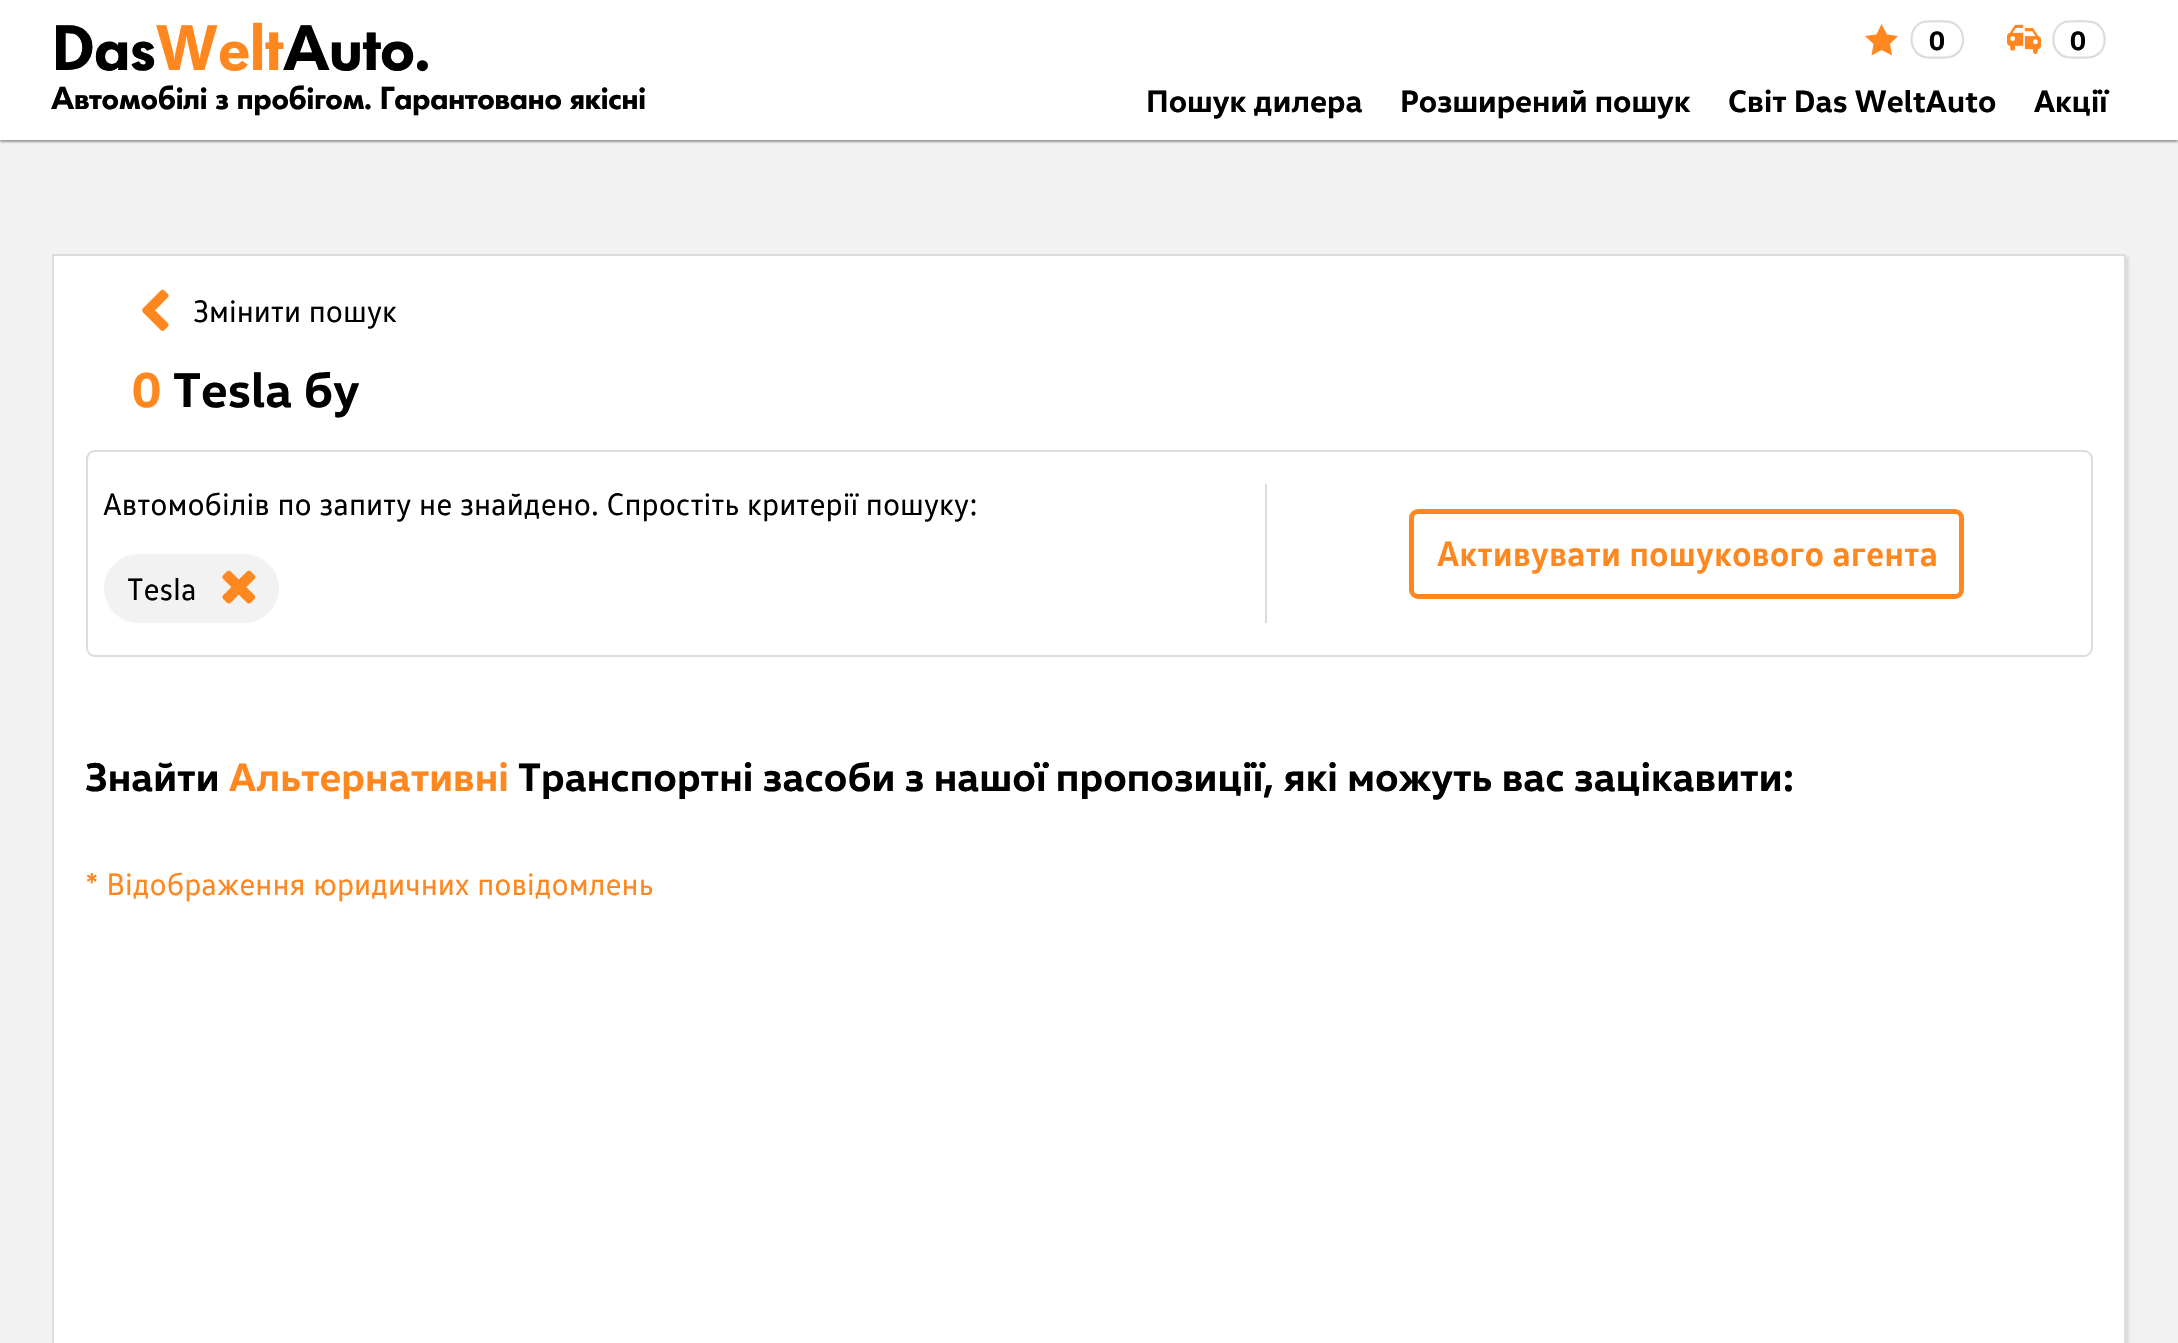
void draw(SkCanvas* canvas) {
	SkPaint fill;
	fill.setAntiAlias(true);
	auto makeFont = [&](const char* family, int weight, float size, bool italic = false) {
		SkFontStyle style(weight, SkFontStyle::kNormal_Width,
			italic ? SkFontStyle::kItalic_Slant : SkFontStyle::kUpright_Slant);
		SkFont result(fontMgr->matchFamilyStyle(family, style), size);
		result.setSubpixel(true);
		return result;
	};
	auto text = [&](const char* s, float x, float y, const SkFont& font) {
		canvas->drawString(s, x, y, font, fill);
	};
	auto spacedText = [&](const char* s, float x, float y, const SkFont& font, const SkPaint& ink, float letter, float word) {
		std::vector<SkGlyphID> glyphs(font.countText(s, strlen(s), SkTextEncoding::kUTF8));
		std::vector<float> xs(glyphs.size());
		font.textToGlyphs(s, strlen(s), SkTextEncoding::kUTF8, glyphs);
		font.getXPos(glyphs, xs, x);
		float extra = 0;
		for (size_t i = 0; i < glyphs.size(); i++) {
			xs[i] += extra;
			extra += letter + word * (glyphs[i] == font.unicharToGlyph(' '));
		}
		canvas->drawTextBlob(SkTextBlob::MakeFromPosHGlyphs(glyphs, xs, y, font), 0, 0, ink);
	};
	auto box = [&](float l, float t, float r, float b) {
		canvas->drawRect(SkRect::MakeLTRB(l, t, r, b), fill);
	};
	auto roundBox = [&](float l, float t, float r, float b, float radius) {
		canvas->drawRoundRect(SkRect::MakeLTRB(l, t, r, b), radius, radius, fill);
	};
	auto picture = [&](const char* path, float l, float t, float r, float b) {
		auto image = SkImages::DeferredFromEncodedData(SkData::MakeFromFileName(path));
		canvas->drawImageRect(image, SkRect::MakeLTRB(l, t, r, b), SkSamplingOptions());
	};
	canvas->clear(0xFFF2F2F2);
	fill.setColor(0xFF9B9B9B);
	fill.setMaskFilter(SkMaskFilter::MakeBlur(kNormal_SkBlurStyle, 1));
	canvas->drawRect(SkRect::MakeLTRB(0, 2, 2178, 142), fill);
	fill.setMaskFilter(nullptr);
	fill.setColor(0xFFFFFFFF);
	box(0, 0, 2178, 140);
	fill.setColor(0xFFFF8720);
	canvas->drawPath(SkPathBuilder(SkPathFillType::kEvenOdd).moveTo(1881.5f, 50).lineTo(1871.5f, 55.5f).lineTo(1873.5f, 44).lineTo(1865, 36).lineTo(1876.5f, 34.5f).lineTo(1881.5f, 24).lineTo(1887, 34.5f).lineTo(1898, 36).lineTo(1890, 44).lineTo(1892, 55.5f).close().detach(), fill);
	fill.setStyle(SkPaint::kStroke_Style);
	fill.setStrokeWidth(2.2f);
	fill.setColor(0xFFDCDCDC);
	canvas->drawPath(SkPathBuilder().moveTo(1927.5f, 21.5f).cubicTo(1934.5f, 21.5f, 1947, 20, 1953, 23).cubicTo(1966.5f, 29, 1966.5f, 50, 1953, 56).cubicTo(1948, 58.5f, 1933.5f, 57.5f, 1927.5f, 57.5f).cubicTo(1906, 56, 1906.5f, 21.5f, 1927.5f, 21.5f).close().detach(), fill);
	picture("image0.png", 2007, 24, 2041, 54);
	canvas->drawPath(SkPathBuilder().moveTo(2069.5f, 21.5f).cubicTo(2076, 21.5f, 2089, 20, 2095, 23).cubicTo(2108, 29, 2108, 50, 2095, 56).cubicTo(2090, 58.5f, 2075.5f, 57.5f, 2069.5f, 57.5f).cubicTo(2047.5f, 56, 2048.5f, 21.5f, 2069.5f, 21.5f).close().detach(), fill);
	fill.setStyle(SkPaint::kFill_Style);
	fill.setMaskFilter(SkMaskFilter::MakeBlur(kNormal_SkBlurStyle, 1));
	canvas->drawRect(SkRect::MakeLTRB(54, 257, 2129, 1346), fill);
	fill.setMaskFilter(nullptr);
	fill.setColor(0xFFFFFFFF);
	canvas->drawRect(SkRect::MakeLTRB(53, 255, 2125, 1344), fill);
	fill.setStyle(SkPaint::kStroke_Style);
	fill.setStrokeWidth(2);
	fill.setColor(0xFFDCDCDC);
	canvas->drawRect(SkRect::MakeLTRB(53, 255, 2125, 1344), fill);
	picture("image1.png", 142, 289, 169, 331);
	canvas->drawRoundRect(SkRect::MakeLTRB(87, 451, 2092, 656), 8, 8, fill);
	fill.setStyle(SkPaint::kFill_Style);
	box(1265, 484, 1267, 623);
	fill.setColor(0xFFF2F2F2);
	roundBox(104, 554, 279, 623, 34.5f);
	picture("image2.png", 222, 570, 256, 604);
	fill.setStyle(SkPaint::kStroke_Style);
	fill.setStrokeWidth(5);
	fill.setColor(0xFFFF8720);
	canvas->drawRoundRect(SkRect::MakeLTRB(1411.5f, 511.5f, 1961.5f, 596.5f), 6.5f, 6.5f, fill);
	auto font1 = makeFont("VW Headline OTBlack", 900, 63);
	fill.setStyle(SkPaint::kFill_Style);
	fill.setColor(0xFF000000);
	spacedText("Das", 51, 70, font1, fill, -1.25f, 0);
	fill.setColor(0xFFFF8720);
	spacedText("Welt", 155, 70, font1, fill, -1.25f, 0);
	fill.setColor(0xFF000000);
	spacedText("Auto.", 283, 70, font1, fill, -1.25f, 0);
	auto font2 = makeFont("VW Headline OTBlack", 900, 31.5f);
	spacedText("Автомобілі з пробігом. Гарантовано якісні", 51, 109, font2, fill, -0.65f, 0);
	auto font3 = makeFont("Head", 700, 27);
	text("0", 1929, 50, font3);
	text("0", 2070, 50, font3);
	auto font4 = makeFont("Head", 700, 31.5f);
	text("Пошук дилера", 1146, 112, font4);
	text("Розширений пошук", 1400, 112, font4);
	text("Світ Das WeltAuto", 1728, 112, font4);
	text("Акції", 2034, 112, font4);
	auto font5 = makeFont("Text", 400, 31.5f);
	text("Змінити пошук", 193, 322, font5);
	auto font6 = makeFont("Head", 700, 49.5f);
	fill.setColor(0xFFFF8720);
	text("0", 132, 407, font6);
	fill.setColor(0xFF000000);
	text("Tesla бу", 173, 407, font6);
	text("Автомобілів по запиту не знайдено. Спростіть критерії пошуку:", 103, 515, font5);
	text("Tesla", 127, 600, font5);
	auto font7 = makeFont("Text", 700, 36);
	fill.setColor(0xFFFF8720);
	text("Активувати пошукового агента", 1437, 566, font7);
	auto font8 = makeFont("Head", 700, 40.5f);
	fill.setColor(0xFF000000);
	text("Знайти", 85, 791, font8);
	fill.setColor(0xFFFF8720);
	text("Альтернативні", 229, 791, font8);
	fill.setColor(0xFF000000);
	text("Транспортні засоби з нашої пропозиції, які можуть вас зацікавити:", 518, 791, font8);
	fill.setColor(0xFFFF8720);
	text("* Відображення юридичних повідомлень", 85, 895, font5);
}
